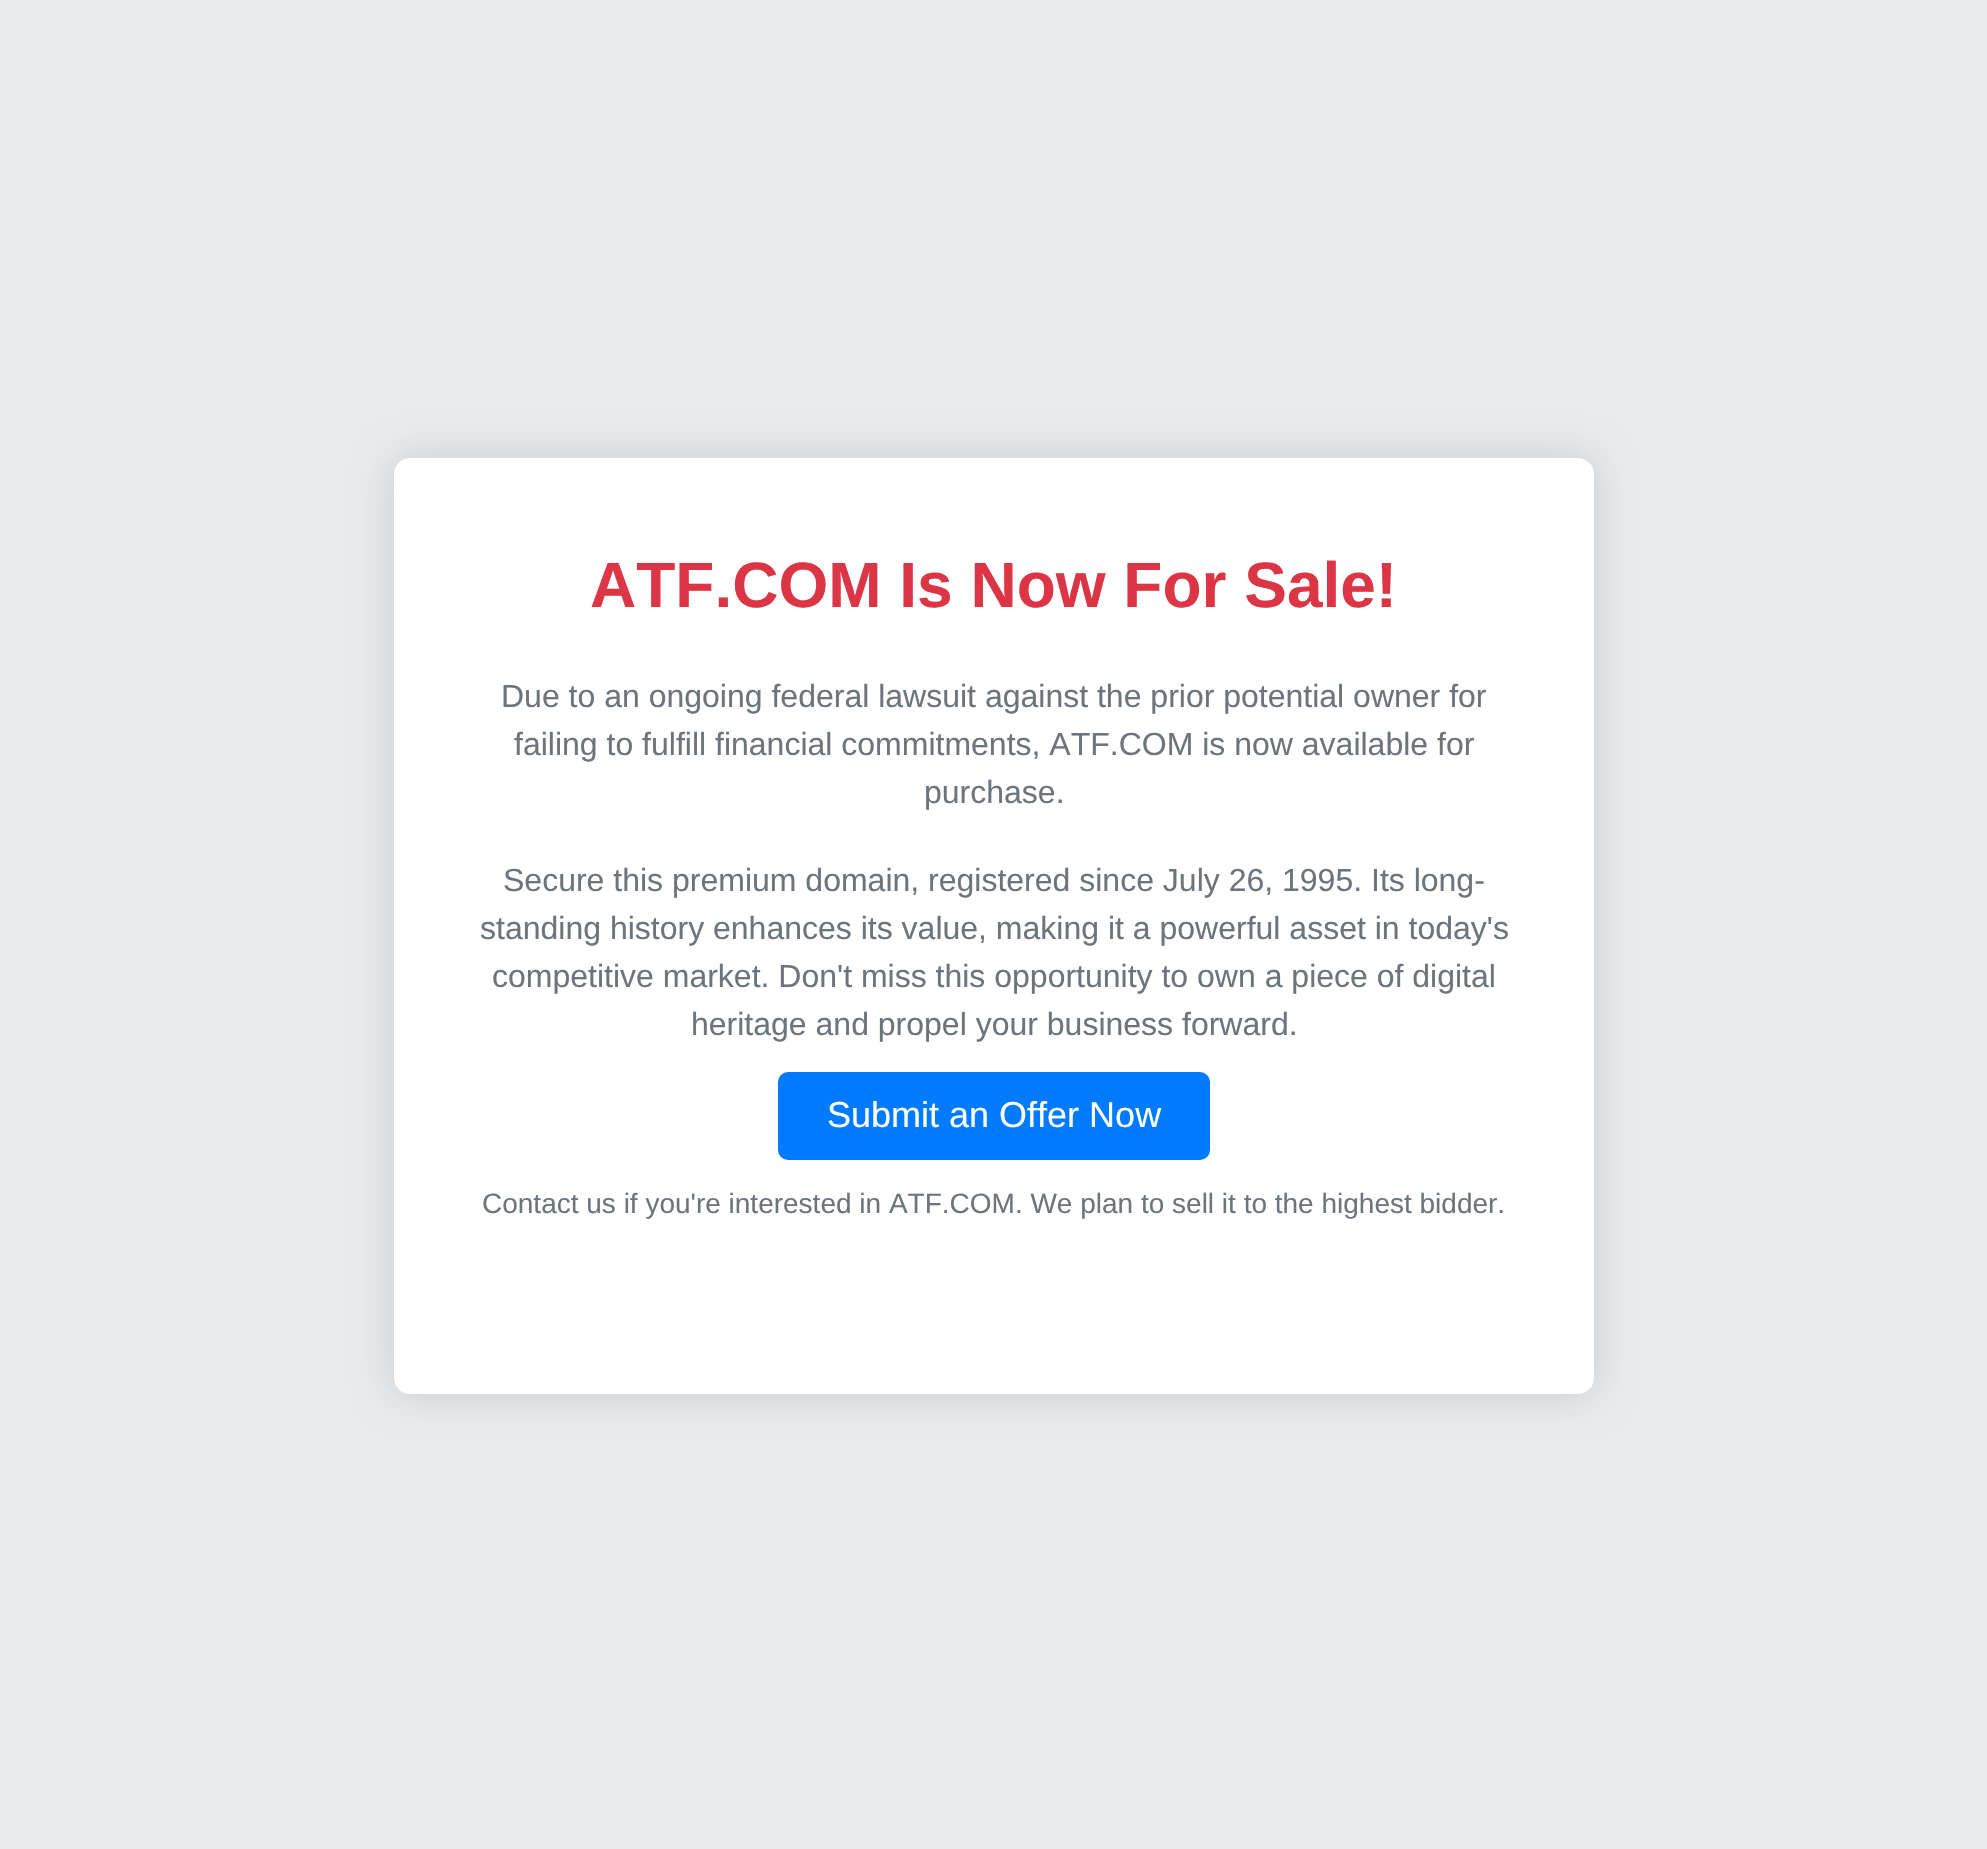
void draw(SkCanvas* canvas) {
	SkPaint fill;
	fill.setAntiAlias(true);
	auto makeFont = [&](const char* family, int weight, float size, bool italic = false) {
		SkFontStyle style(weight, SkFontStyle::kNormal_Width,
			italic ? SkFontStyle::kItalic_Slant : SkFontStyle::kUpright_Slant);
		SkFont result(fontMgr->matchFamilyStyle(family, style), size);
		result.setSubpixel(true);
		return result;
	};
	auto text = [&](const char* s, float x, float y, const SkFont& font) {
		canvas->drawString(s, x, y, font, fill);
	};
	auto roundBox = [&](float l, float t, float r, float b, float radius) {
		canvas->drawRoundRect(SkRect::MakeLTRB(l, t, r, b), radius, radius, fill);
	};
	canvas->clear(0xFFE9ECEF);
	fill.setColor(0x26000000);
	fill.setMaskFilter(SkMaskFilter::MakeBlur(kNormal_SkBlurStyle, 20));
	canvas->drawRoundRect(SkRect::MakeLTRB(394, 458, 1594, 1394), 16, 16, fill);
	fill.setMaskFilter(nullptr);
	fill.setColor(0xFFFFFFFF);
	roundBox(394, 458, 1594, 1394, 16);
	fill.setColor(0xFF007BFF);
	roundBox(778, 1072, 1210, 1160, 10);
	auto font1 = makeFont("Liberation Sans", 700, 64);
	fill.setColor(0xFFDC3545);
	text("ATF.COM Is Now For Sale!", 590, 607, font1);
	auto font2 = makeFont("Liberation Sans", 400, 32);
	fill.setColor(0xFF6C757D);
	text("Due to an ongoing federal lawsuit against the prior potential owner for", 501, 707, font2);
	text("failing to fulfill financial commitments, ATF.COM is now available for", 514, 755, font2);
	text("purchase.", 924, 803, font2);
	text("Secure this premium domain, registered since July 26, 1995. Its long-", 503, 891, font2);
	text("standing history enhances its value, making it a powerful asset in today's", 480, 939, font2);
	text("competitive market. Don't miss this opportunity to own a piece of digital", 492, 987, font2);
	text("heritage and propel your business forward.", 691, 1035, font2);
	auto font3 = makeFont("Liberation Sans", 400, 36);
	fill.setColor(0xFFFFFFFF);
	text("Submit an Offer Now", 827, 1127, font3);
	auto font4 = makeFont("Liberation Sans", 400, 28);
	fill.setColor(0xFF6C757D);
	text("Contact us if you're interested in ATF.COM. We plan to sell it to the highest bidder.", 482, 1213, font4);
}
